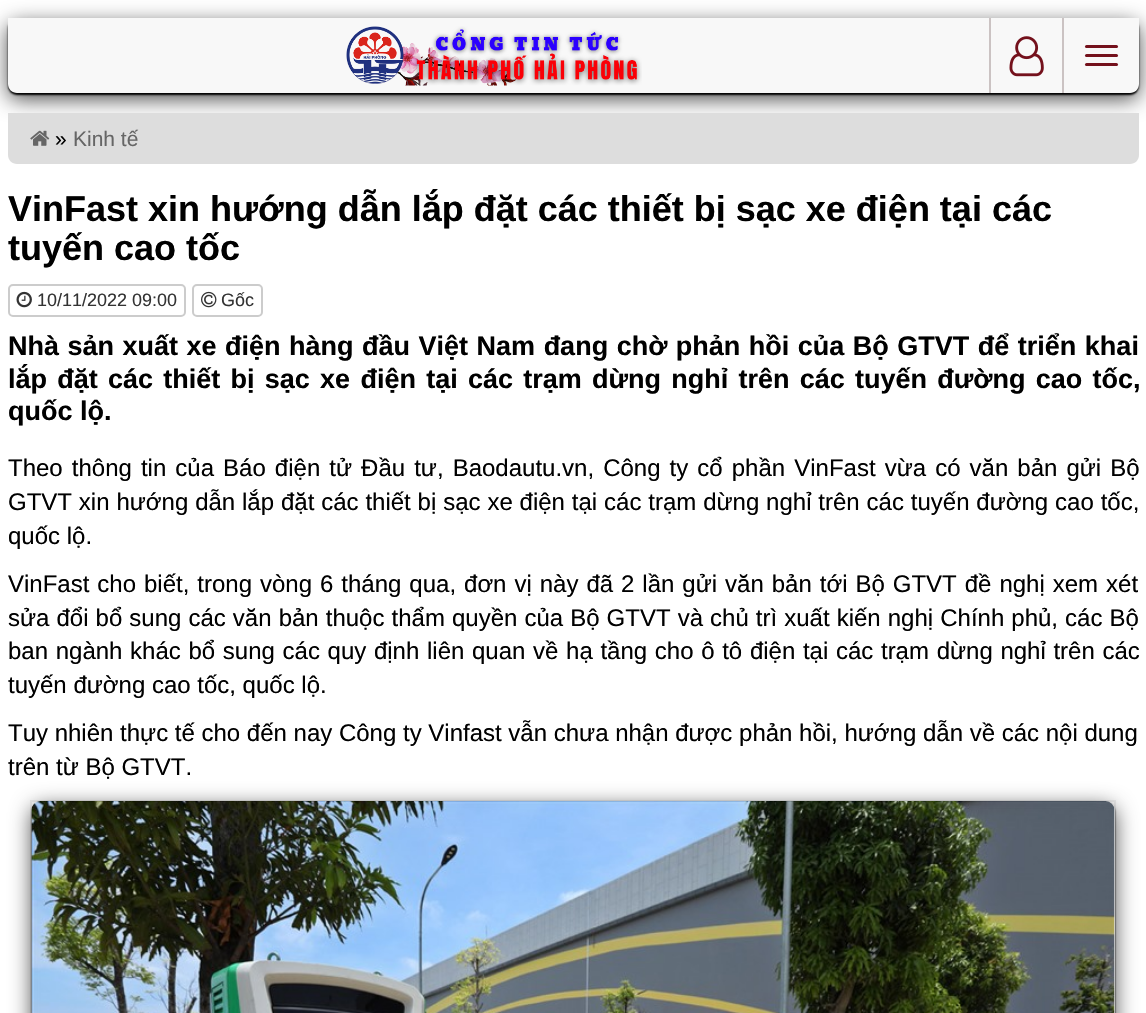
void draw(SkCanvas* canvas) {
	SkPaint fill;
	fill.setAntiAlias(true);
	auto makeFont = [&](const char* family, int weight, float size, bool italic = false) {
		SkFontStyle style(weight, SkFontStyle::kNormal_Width,
			italic ? SkFontStyle::kItalic_Slant : SkFontStyle::kUpright_Slant);
		SkFont result(fontMgr->matchFamilyStyle(family, style), size);
		result.setSubpixel(true);
		return result;
	};
	auto text = [&](const char* s, float x, float y, const SkFont& font) {
		canvas->drawString(s, x, y, font, fill);
	};
	auto spacedText = [&](const char* s, float x, float y, const SkFont& font, const SkPaint& ink, float letter, float word) {
		std::vector<SkGlyphID> glyphs(font.countText(s, strlen(s), SkTextEncoding::kUTF8));
		std::vector<float> xs(glyphs.size());
		font.textToGlyphs(s, strlen(s), SkTextEncoding::kUTF8, glyphs);
		font.getXPos(glyphs, xs, x);
		float extra = 0;
		for (size_t i = 0; i < glyphs.size(); i++) {
			xs[i] += extra;
			extra += letter + word * (glyphs[i] == font.unicharToGlyph(' '));
		}
		canvas->drawTextBlob(SkTextBlob::MakeFromPosHGlyphs(glyphs, xs, y, font), 0, 0, ink);
	};
	auto box = [&](float l, float t, float r, float b) {
		canvas->drawRect(SkRect::MakeLTRB(l, t, r, b), fill);
	};
	auto roundBox = [&](float l, float t, float r, float b, float radius) {
		canvas->drawRoundRect(SkRect::MakeLTRB(l, t, r, b), radius, radius, fill);
	};
	auto picture = [&](const char* path, float l, float t, float r, float b) {
		auto image = SkImages::DeferredFromEncodedData(SkData::MakeFromFileName(path));
		canvas->drawImageRect(image, SkRect::MakeLTRB(l, t, r, b), SkSamplingOptions());
	};
	canvas->clear(0xFFFFFFFF);
	fill.setColor(0xB3000000);
	fill.setMaskFilter(SkMaskFilter::MakeBlur(kNormal_SkBlurStyle, 10.5f));
	canvas->drawRoundRect(SkRect::MakeLTRB(8, 24, 1139, 99), 9, 9, fill);
	fill.setMaskFilter(nullptr);
	fill.setColor(0xFF000000);
	fill.setMaskFilter(SkMaskFilter::MakeBlur(kNormal_SkBlurStyle, 1));
	canvas->drawRoundRect(SkRect::MakeLTRB(8, 20, 1139, 95), 9, 9, fill);
	fill.setMaskFilter(nullptr);
	fill.setColor(0xFFF8F8F8);
	canvas->drawPath(SkPathBuilder().moveTo(8, 18).lineTo(1139, 18).lineTo(1139, 84).cubicTo(1139, 89, 1135, 93, 1130, 93).lineTo(17, 93).cubicTo(12, 93, 8, 89, 8, 84).close().detach(), fill);
	picture("image0.png", 346, 26, 642, 86);
	fill.setColor(0xFFCBC3C3);
	box(1062, 18, 1064, 93);
	box(989, 18, 991, 93);
	picture("image1.png", 1009, 36, 1044, 77);
	fill.setColor(0xFF74111C);
	roundBox(1085, 45, 1118, 48, 1.5f);
	roundBox(1085, 54, 1118, 57, 1.5f);
	roundBox(1085, 63, 1118, 66, 1.5f);
	fill.setColor(0xFFDDDDDD);
	canvas->drawPath(SkPathBuilder().moveTo(8, 113).lineTo(1139, 113).lineTo(1139, 155).cubicTo(1139, 160, 1135, 164, 1130, 164).lineTo(17, 164).cubicTo(12, 164, 8, 160, 8, 155).close().detach(), fill);
	picture("image2.png", 30, 130, 50, 146);
	fill.setStyle(SkPaint::kStroke_Style);
	fill.setStrokeWidth(2);
	fill.setColor(0xFFCCCCCC);
	canvas->drawRoundRect(SkRect::MakeLTRB(9, 285, 185, 316), 4, 4, fill);
	picture("image3.png", 16, 291, 32, 308);
	canvas->drawRoundRect(SkRect::MakeLTRB(193, 285, 262, 316), 4, 4, fill);
	picture("image4.png", 201, 291, 217, 308);
	fill.setColor(0xFFF0F0F0);
	canvas->drawRect(SkRect::MakeLTRB(31, 801, 1115, 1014), fill);
	fill.setStyle(SkPaint::kFill_Style);
	fill.setColor(0xB3000000);
	fill.setMaskFilter(SkMaskFilter::MakeBlur(kNormal_SkBlurStyle, 10.5f));
	canvas->drawRoundRect(SkRect::MakeLTRB(32, 807, 1115, 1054), 9, 9, fill);
	fill.setMaskFilter(nullptr);
	fill.setColor(0xFF000000);
	fill.setMaskFilter(SkMaskFilter::MakeBlur(kNormal_SkBlurStyle, 1));
	canvas->drawRoundRect(SkRect::MakeLTRB(32, 803, 1115, 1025), 9, 9, fill);
	fill.setMaskFilter(nullptr);
	fill.setColor(0xFFDDDDDD);
	canvas->drawPath(SkPathBuilder().moveTo(41, 801).lineTo(1106, 801).cubicTo(1111, 801, 1115, 805, 1115, 810).lineTo(1115, 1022).lineTo(32, 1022).lineTo(32, 810).cubicTo(32, 805, 36, 801, 41, 801).close().detach(), fill);
	picture("image5.png", 31, 801, 1115, 1013);
	auto font1 = makeFont("Liberation Sans", 400, 21);
	fill.setColor(0xFF000000);
	text("»", 55, 146, font1);
	fill.setColor(0xFF666666);
	text("Kinh tế", 73, 146, font1);
	auto font2 = makeFont("Liberation Sans", 700, 36);
	fill.setColor(0xFF000000);
	text("VinFast xin hướng dẫn lắp đặt các thiết bị sạc xe điện tại các", 8, 221, font2);
	text("tuyến cao tốc", 8, 260, font2);
	auto font3 = makeFont("Liberation Sans", 400, 18);
	fill.setColor(0xFF333333);
	text("10/11/2022 09:00", 37, 306, font3);
	text("Gốc", 221, 306, font3);
	auto font4 = makeFont("Liberation Sans", 700, 27);
	fill.setColor(0xFF000000);
	spacedText("Nhà sản xuất xe điện hàng đầu Việt Nam đang chờ phản hồi của Bộ GTVT để triển khai", 8, 355, font4, fill, 0, 1);
	spacedText("lắp đặt các thiết bị sạc xe điện tại các trạm dừng nghỉ trên các tuyến đường cao tốc,", 8, 388, font4, fill, 0, 2.75f);
	text("quốc lộ.", 8, 420, font4);
	auto font5 = makeFont("Liberation Sans", 400, 24);
	spacedText("Theo thông tin của Báo điện tử Đầu tư, Baodautu.vn, Công ty cổ phần VinFast vừa có văn bản gửi Bộ", 8, 476, font5, fill, 0, 2.4f);
	spacedText("GTVT xin hướng dẫn lắp đặt các thiết bị sạc xe điện tại các trạm dừng nghỉ trên các tuyến đường cao tốc,", 8, 510, font5, fill, 0, 0.2f);
	text("quốc lộ.", 8, 544, font5);
	spacedText("VinFast cho biết, trong vòng 6 tháng qua, đơn vị này đã 2 lần gửi văn bản tới Bộ GTVT đề nghị xem xét", 8, 592, font5, fill, 0, 1.3f);
	spacedText("sửa đổi bổ sung các văn bản thuộc thẩm quyền của Bộ GTVT và chủ trì xuất kiến nghị Chính phủ, các Bộ", 8, 626, font5, fill, 0, 0.4f);
	spacedText("ban ngành khác bổ sung các quy định liên quan về hạ tầng cho ô tô điện tại các trạm dừng nghỉ trên các", 8, 659, font5, fill, 0, 1);
	text("tuyến đường cao tốc, quốc lộ.", 8, 693, font5);
	text("Tuy nhiên thực tế cho đến nay Công ty Vinfast vẫn chưa nhận được phản hồi, hướng dẫn về các nội dung", 8, 741, font5);
	text("trên từ Bộ GTVT.", 8, 775, font5);
}
